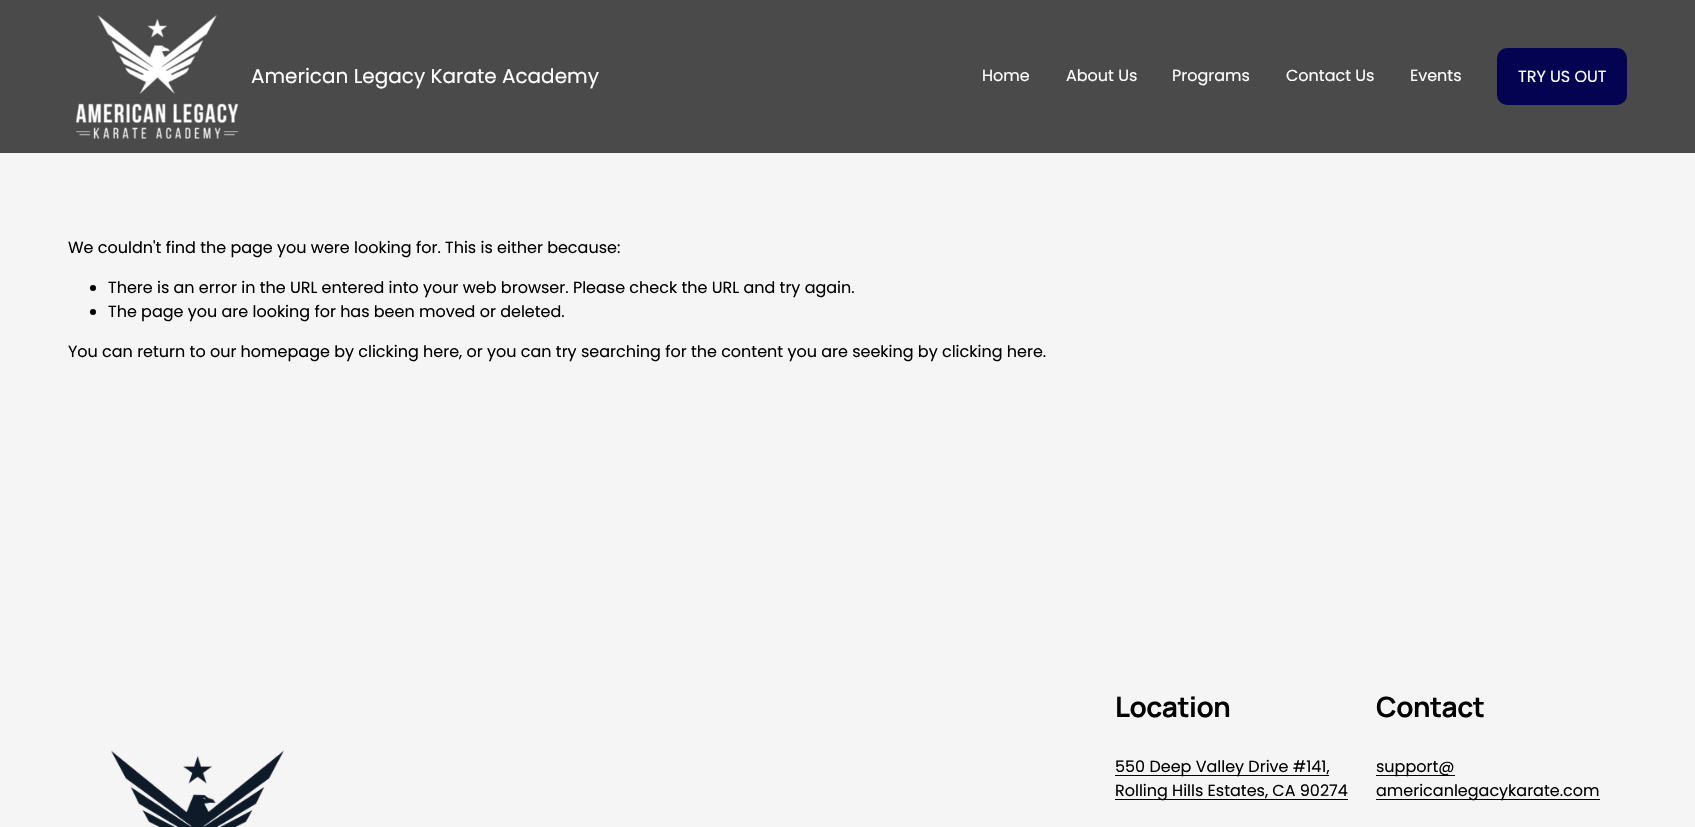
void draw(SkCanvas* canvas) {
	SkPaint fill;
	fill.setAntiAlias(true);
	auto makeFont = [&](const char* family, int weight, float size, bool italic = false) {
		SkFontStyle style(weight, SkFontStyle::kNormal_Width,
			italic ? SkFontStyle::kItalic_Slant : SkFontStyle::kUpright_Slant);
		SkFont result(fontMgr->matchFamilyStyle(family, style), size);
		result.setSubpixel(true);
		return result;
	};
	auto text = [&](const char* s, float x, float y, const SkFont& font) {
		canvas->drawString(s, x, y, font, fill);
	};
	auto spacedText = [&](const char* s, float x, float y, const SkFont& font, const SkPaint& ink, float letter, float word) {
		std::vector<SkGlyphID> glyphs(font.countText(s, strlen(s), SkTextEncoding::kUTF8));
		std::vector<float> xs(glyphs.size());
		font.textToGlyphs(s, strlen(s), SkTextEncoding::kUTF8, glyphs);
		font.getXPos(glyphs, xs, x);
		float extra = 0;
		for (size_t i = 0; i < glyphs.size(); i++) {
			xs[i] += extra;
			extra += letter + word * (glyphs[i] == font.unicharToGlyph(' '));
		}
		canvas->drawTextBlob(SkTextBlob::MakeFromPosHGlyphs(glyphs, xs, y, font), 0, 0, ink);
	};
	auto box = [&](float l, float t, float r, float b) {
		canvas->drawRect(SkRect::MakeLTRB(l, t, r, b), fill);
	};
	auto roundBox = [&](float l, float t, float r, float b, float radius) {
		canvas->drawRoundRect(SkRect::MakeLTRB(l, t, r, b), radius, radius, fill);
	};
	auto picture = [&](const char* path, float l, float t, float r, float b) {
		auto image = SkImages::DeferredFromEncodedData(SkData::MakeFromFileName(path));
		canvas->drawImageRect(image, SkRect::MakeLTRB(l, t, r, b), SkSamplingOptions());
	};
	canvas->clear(0xFFF5F5F5);
	fill.setColor(0xFF4A4A4A);
	box(0, 0, 1695, 153);
	picture("image0.png", 76, 15, 239, 139);
	fill.setColor(0xFF040352);
	roundBox(1497, 48, 1627, 105, 10);
	fill.setColor(0xFF000000);
	canvas->drawCircle(93, 288, 3, fill);
	canvas->drawCircle(93, 312, 3, fill);
	picture("image1.png", 111, 750, 284, 827);
	box(1115, 775, 1329, 776);
	box(1115, 799, 1348, 800);
	box(1376, 775, 1455, 776);
	box(1376, 799, 1600, 800);
	auto font1 = makeFont("Poppins", 400, 20);
	fill.setColor(0xFFFFFFFF);
	text("American Legacy Karate Academy", 251, 83, font1);
	auto font2 = makeFont("Poppins", 400, 16);
	text("Home", 982, 81, font2);
	text("About Us", 1066, 81, font2);
	text("Programs", 1172, 81, font2);
	text("Contact Us", 1286, 81, font2);
	text("Events", 1410, 81, font2);
	text("TRY US OUT", 1518, 82, font2);
	fill.setColor(0xFF000000);
	text("We couldn't find the page you were looking for. This is either because:", 68, 253, font2);
	text("There is an error in the URL entered into your web browser. Please check the URL and try again.", 108, 293, font2);
	text("The page you are looking for has been moved or deleted.", 108, 317, font2);
	text("You can return to our homepage by clicking here, or you can try searching for the content you are seeking by clicking here.", 68, 357, font2);
	auto font3 = makeFont("Manrope", 700, 28);
	spacedText("Location", 1115, 717, font3, fill, -0.5f, 0);
	text("550 Deep Valley Drive #141,", 1115, 772, font2);
	text("Rolling Hills Estates, CA 90274", 1115, 796, font2);
	spacedText("Contact", 1376, 717, font3, fill, -0.5f, 0);
	text("support@", 1376, 772, font2);
	text("americanlegacykarate.com", 1376, 796, font2);
}
